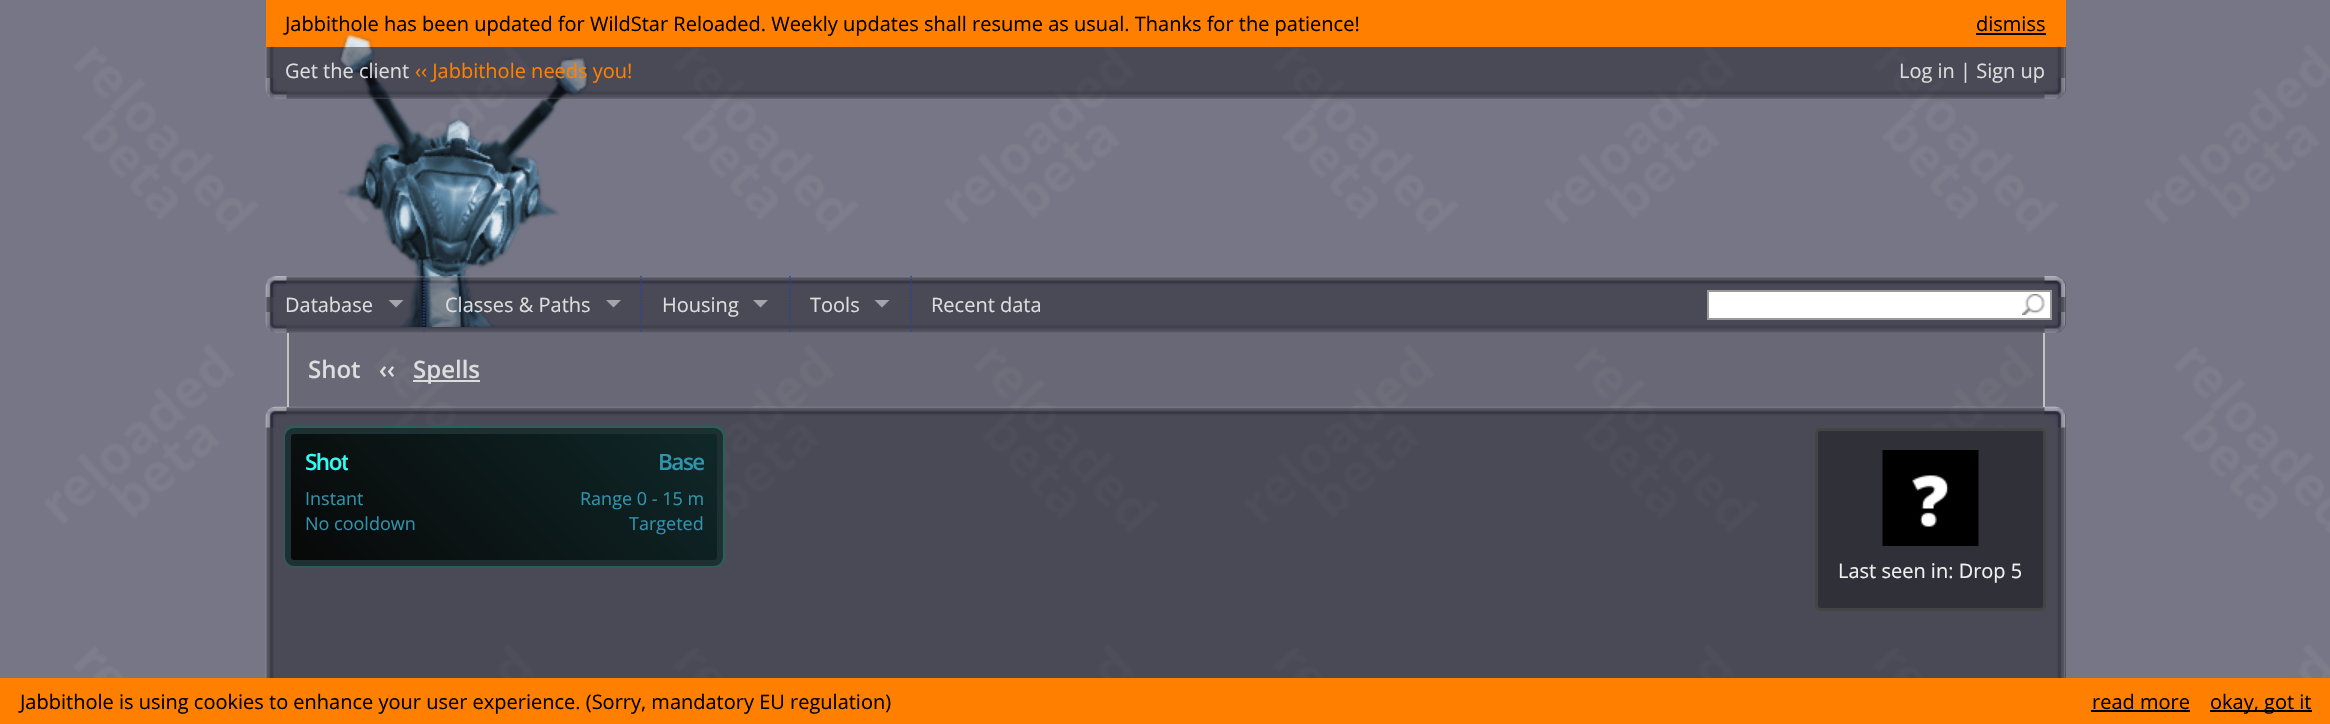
void draw(SkCanvas* canvas) {
	SkPaint fill;
	fill.setAntiAlias(true);
	auto makeFont = [&](const char* family, int weight, float size, bool italic = false) {
		SkFontStyle style(weight, SkFontStyle::kNormal_Width,
			italic ? SkFontStyle::kItalic_Slant : SkFontStyle::kUpright_Slant);
		SkFont result(fontMgr->matchFamilyStyle(family, style), size);
		result.setSubpixel(true);
		return result;
	};
	auto text = [&](const char* s, float x, float y, const SkFont& font) {
		canvas->drawString(s, x, y, font, fill);
	};
	auto spacedText = [&](const char* s, float x, float y, const SkFont& font, const SkPaint& ink, float letter, float word) {
		std::vector<SkGlyphID> glyphs(font.countText(s, strlen(s), SkTextEncoding::kUTF8));
		std::vector<float> xs(glyphs.size());
		font.textToGlyphs(s, strlen(s), SkTextEncoding::kUTF8, glyphs);
		font.getXPos(glyphs, xs, x);
		float extra = 0;
		for (size_t i = 0; i < glyphs.size(); i++) {
			xs[i] += extra;
			extra += letter + word * (glyphs[i] == font.unicharToGlyph(' '));
		}
		canvas->drawTextBlob(SkTextBlob::MakeFromPosHGlyphs(glyphs, xs, y, font), 0, 0, ink);
	};
	auto box = [&](float l, float t, float r, float b) {
		canvas->drawRect(SkRect::MakeLTRB(l, t, r, b), fill);
	};
	auto roundBox = [&](float l, float t, float r, float b, float radius) {
		canvas->drawRoundRect(SkRect::MakeLTRB(l, t, r, b), radius, radius, fill);
	};
	auto picture = [&](const char* path, float l, float t, float r, float b) {
		auto image = SkImages::DeferredFromEncodedData(SkData::MakeFromFileName(path));
		canvas->drawImageRect(image, SkRect::MakeLTRB(l, t, r, b), SkSamplingOptions());
	};
	canvas->clear(0xFF767686);
	picture("image0.png", 45, 45, 2330, 678);
	fill.setColor(0xFFFF8000);
	box(266, 0, 2066, 47);
	fill.setColor(0xFF000000);
	box(1976, 33, 2046, 35);
	fill.setColor(0x1F000000);
	box(289, 333, 2043, 407);
	fill.setColor(0xFFC2C2C2);
	box(2043, 333, 2045, 407);
	box(287, 333, 289, 407);
	fill.setColor(0xFFDDDDDD);
	box(413, 380, 480, 382);
	fill.setColor(0x6B0B0B16);
	roundBox(266, 407, 2066, 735, 11);
	picture("image5.png", 265, 406, 2066, 678);
	fill.setColor(0xFF21655A);
	fill.setMaskFilter(SkMaskFilter::MakeBlur(kNormal_SkBlurStyle, 1));
	canvas->drawRoundRect(SkRect::MakeLTRB(284, 426, 725, 567), 11, 11, fill);
	fill.setMaskFilter(nullptr);
	{
		const SkColor colors[] = {0xFF080808, 0xFF102829};
		const float stops[] = {0, 1};
		const SkPoint ends[] = {{366, 635}, {642, 359}};
		fill.setShader(SkGradientShader::MakeLinear(ends, colors, stops, 2, SkTileMode::kClamp));
		fill.setAlpha(255);
	}
	box(291, 434, 717, 560);
	fill.setStyle(SkPaint::kStroke_Style);
	fill.setStrokeWidth(6);
	fill.setShader(nullptr);
	fill.setColor(0xFF1E3031);
	canvas->drawRoundRect(SkRect::MakeLTRB(288, 431, 720, 563), 6, 6, fill);
	fill.setStyle(SkPaint::kFill_Style);
	fill.setColor(0xFF303039);
	canvas->drawRoundRect(SkRect::MakeLTRB(1816.5f, 429.5f, 2044.5f, 609.5f), 3.5f, 3.5f, fill);
	fill.setStyle(SkPaint::kStroke_Style);
	fill.setStrokeWidth(3);
	fill.setColor(0xFF444444);
	canvas->drawRoundRect(SkRect::MakeLTRB(1816.5f, 429.5f, 2044.5f, 609.5f), 3.5f, 3.5f, fill);
	picture("image6.png", 1882, 450, 1979, 546);
	fill.setStyle(SkPaint::kFill_Style);
	fill.setColor(0xFFFF8000);
	box(0, 678, 2330, 724);
	fill.setColor(0xFF000000);
	box(2091, 710, 2190, 712);
	box(2210, 710, 2312, 712);
	auto font1 = makeFont("Open Sans", 400, 20);
	text("Jabbithole has been updated for WildStar Reloaded. Weekly updates shall resume as usual. Thanks for the patience!", 285, 31, font1);
	text("dismiss", 1976, 31, font1);
	picture("image1.png", 338, 33, 589, 327);
	fill.setColor(0x6B0B0B16);
	canvas->drawPath(SkPathBuilder().moveTo(266, 47).lineTo(2066, 47).lineTo(2066, 88).cubicTo(2066, 94, 2061, 99, 2055, 99).lineTo(277, 99).cubicTo(271, 99, 266, 94, 266, 88).close().detach(), fill);
	picture("image2.png", 265, 46, 2066, 99);
	fill.setColor(0xFFDDDDDD);
	text("Get the client", 285, 78, font1);
	fill.setColor(0xFFFF8000);
	text("‹‹ Jabbithole needs you!", 415, 78, font1);
	fill.setColor(0xFFDDDDDD);
	text("Log in | Sign up", 1899, 78, font1);
	fill.setColor(0x6B0B0B16);
	roundBox(266, 276, 2066, 333, 11);
	picture("image3.png", 265, 276, 2066, 333);
	fill.setColor(0xFFDDDDDD);
	text("Database", 285, 312, font1);
	fill.setColor(0xFFA4A4AB);
	canvas->drawPath(SkPathBuilder().moveTo(388.5f, 300).lineTo(403.5f, 300).lineTo(396, 307.5f).close().detach(), fill);
	fill.setStyle(SkPaint::kStroke_Style);
	fill.setStrokeWidth(1.5f);
	fill.setColor(0xFF2641A6);
	fill.setPathEffect(SkDashPathEffect::Make({{1.5f, 1.5f}}, 0));
	canvas->drawPath(SkPathBuilder().moveTo(424, 276).lineTo(424, 333).detach(), fill);
	fill.setPathEffect(nullptr);
	fill.setStyle(SkPaint::kFill_Style);
	fill.setColor(0xFFDDDDDD);
	text("Classes & Paths", 445, 312, font1);
	fill.setColor(0xFFA4A4AB);
	canvas->drawPath(SkPathBuilder().moveTo(606, 300).lineTo(621, 300).lineTo(613.5f, 307.5f).close().detach(), fill);
	fill.setStyle(SkPaint::kStroke_Style);
	fill.setColor(0xFF2641A6);
	fill.setPathEffect(SkDashPathEffect::Make({{1.5f, 1.5f}}, 0));
	canvas->drawPath(SkPathBuilder().moveTo(641, 276).lineTo(641, 333).detach(), fill);
	fill.setPathEffect(nullptr);
	fill.setStyle(SkPaint::kFill_Style);
	fill.setColor(0xFFDDDDDD);
	text("Housing", 662, 312, font1);
	fill.setColor(0xFFA4A4AB);
	canvas->drawPath(SkPathBuilder().moveTo(753, 300).lineTo(768, 300).lineTo(760.5f, 307.5f).close().detach(), fill);
	fill.setStyle(SkPaint::kStroke_Style);
	fill.setColor(0xFF2641A6);
	fill.setPathEffect(SkDashPathEffect::Make({{1.5f, 1.5f}}, 0));
	canvas->drawPath(SkPathBuilder().moveTo(790, 276).lineTo(790, 333).detach(), fill);
	fill.setPathEffect(nullptr);
	fill.setStyle(SkPaint::kFill_Style);
	fill.setColor(0xFFDDDDDD);
	text("Tools", 810, 312, font1);
	fill.setColor(0xFFA4A4AB);
	canvas->drawPath(SkPathBuilder().moveTo(874.5f, 300).lineTo(889.5f, 300).lineTo(882, 307.5f).close().detach(), fill);
	fill.setStyle(SkPaint::kStroke_Style);
	fill.setColor(0xFF2641A6);
	fill.setPathEffect(SkDashPathEffect::Make({{1.5f, 1.5f}}, 0));
	canvas->drawPath(SkPathBuilder().moveTo(911, 276).lineTo(911, 333).detach(), fill);
	fill.setPathEffect(nullptr);
	fill.setStyle(SkPaint::kFill_Style);
	fill.setColor(0xFFDDDDDD);
	text("Recent data", 931, 312, font1);
	fill.setColor(0xFFFFFFFF);
	box(1709, 292, 2050, 318);
	picture("image4.png", 2022, 294, 2045, 315);
	fill.setStyle(SkPaint::kStroke_Style);
	fill.setStrokeWidth(2);
	fill.setColor(0xFF999999);
	canvas->drawRect(SkRect::MakeLTRB(1708, 291, 2051, 319), fill);
	auto font2 = makeFont("Open Sans", 600, 24);
	fill.setStyle(SkPaint::kFill_Style);
	fill.setColor(0xFFDDDDDD);
	text("Shot", 308, 378, font2);
	text("‹‹", 379, 378, font2);
	text("Spells", 413, 378, font2);
	canvas->save();
	canvas->clipRect(SkRect::MakeLTRB(305, 447, 348, 477));
	auto font3 = makeFont("Open Sans", 600, 22.5f);
	fill.setColor(0xFF32FCF6);
	spacedText("Shot", 305, 470, font3, fill, -1.5f, 0);
	canvas->restore();
	canvas->save();
	canvas->clipRect(SkRect::MakeLTRB(659, 447, 704, 477));
	fill.setColor(0xFF3094AC);
	spacedText("Base", 658, 470, font3, fill, -1.5f, 0);
	canvas->restore();
	auto font4 = makeFont("Open Sans", 400, 18);
	text("Instant", 305, 505, font4);
	text("No cooldown", 305, 530, font4);
	text("Range 0 - 15 m", 580, 505, font4);
	text("Targeted", 629, 530, font4);
	fill.setColor(0xFFF0F0F0);
	text("Last seen in: Drop 5", 1838, 578, font1);
	fill.setColor(0xFF000000);
	text("Jabbithole is using cookies to enhance your user experience. (Sorry, mandatory EU regulation)", 20, 709, font1);
	text("read more", 2092, 709, font1);
	text("okay, got it", 2210, 709, font1);
}
